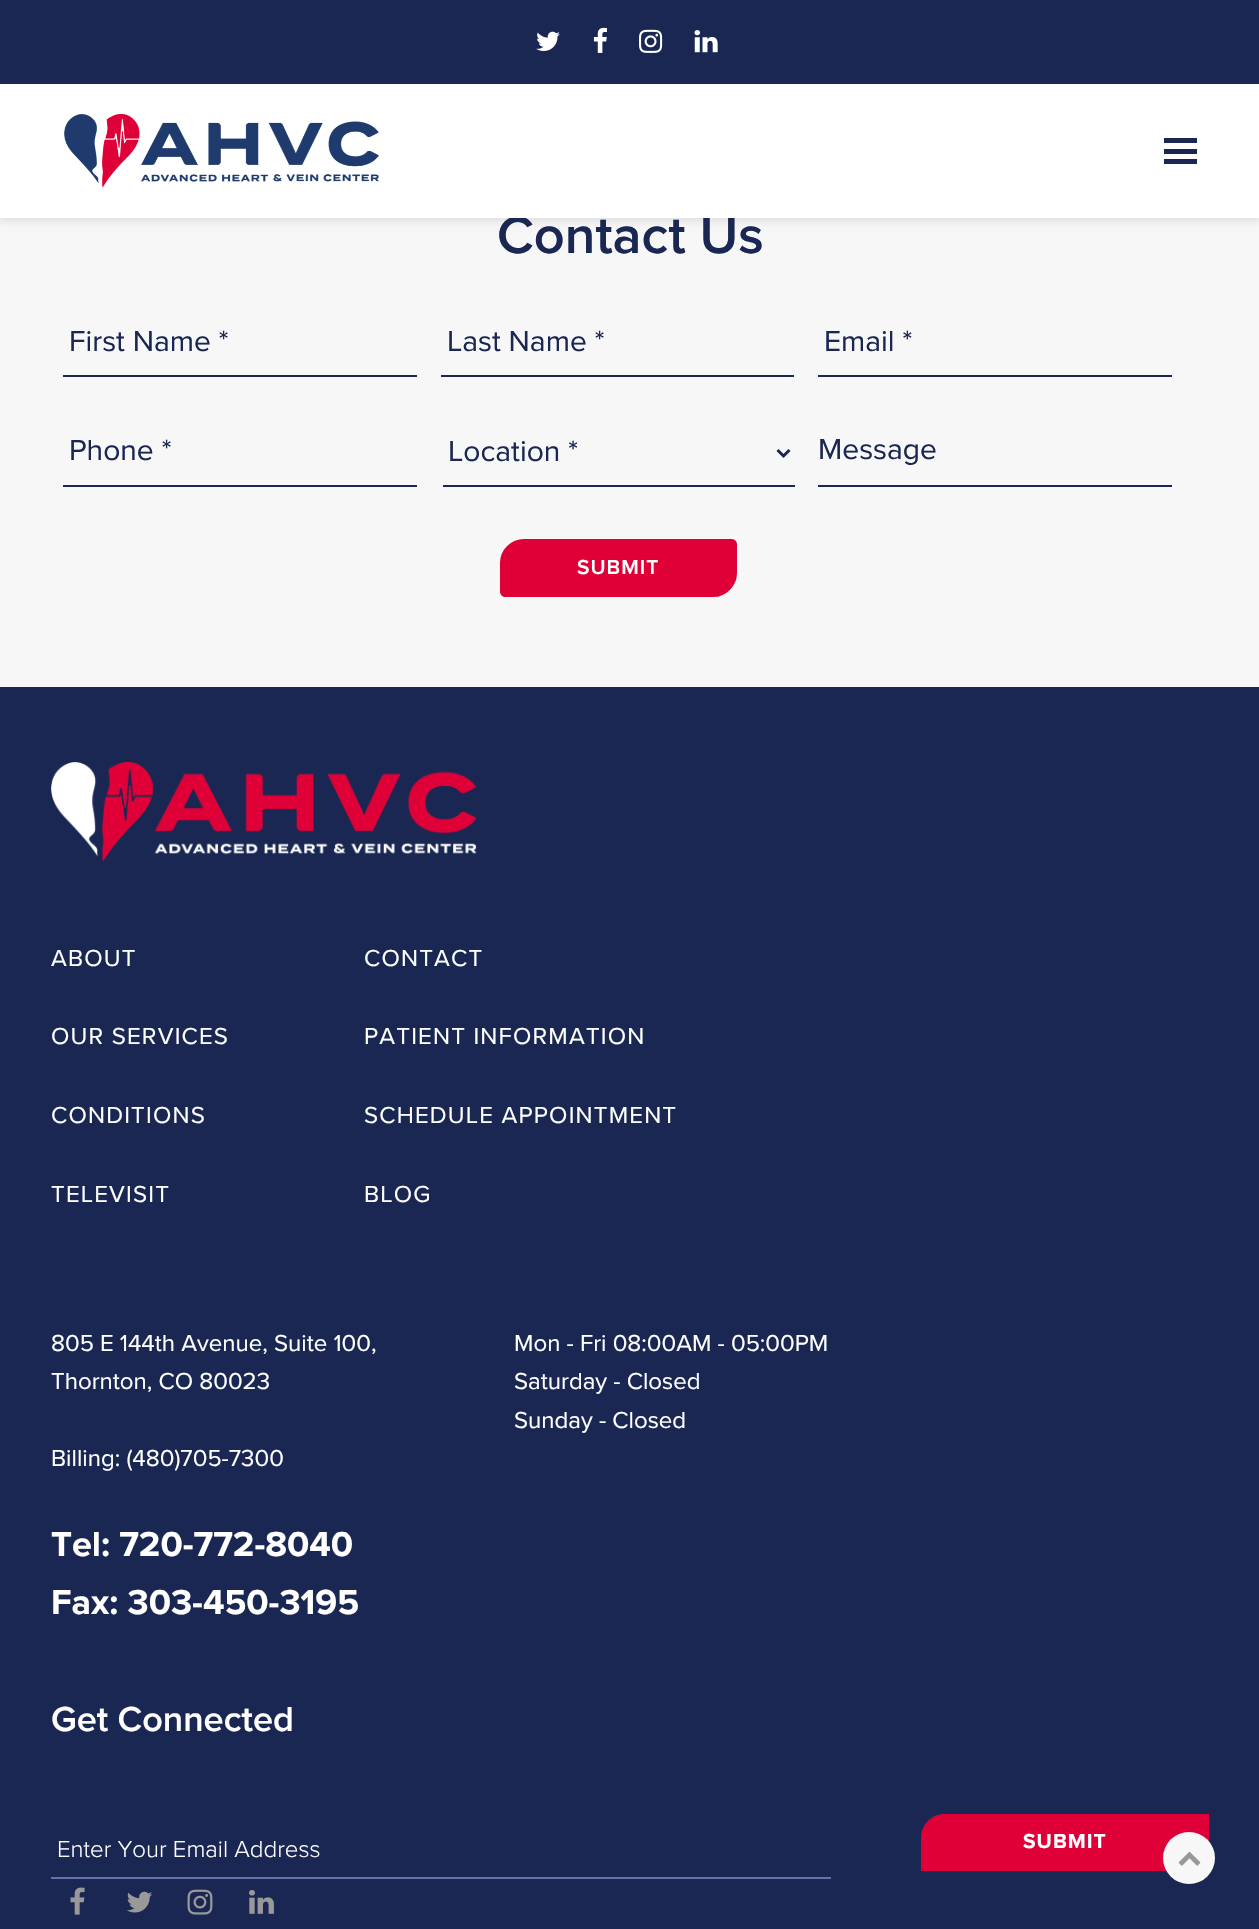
void draw(SkCanvas* canvas) {
	SkPaint fill;
	fill.setAntiAlias(true);
	auto makeFont = [&](const char* family, int weight, float size, bool italic = false) {
		SkFontStyle style(weight, SkFontStyle::kNormal_Width,
			italic ? SkFontStyle::kItalic_Slant : SkFontStyle::kUpright_Slant);
		SkFont result(fontMgr->matchFamilyStyle(family, style), size);
		result.setSubpixel(true);
		return result;
	};
	auto text = [&](const char* s, float x, float y, const SkFont& font) {
		canvas->drawString(s, x, y, font, fill);
	};
	auto spacedText = [&](const char* s, float x, float y, const SkFont& font, const SkPaint& ink, float letter, float word) {
		std::vector<SkGlyphID> glyphs(font.countText(s, strlen(s), SkTextEncoding::kUTF8));
		std::vector<float> xs(glyphs.size());
		font.textToGlyphs(s, strlen(s), SkTextEncoding::kUTF8, glyphs);
		font.getXPos(glyphs, xs, x);
		float extra = 0;
		for (size_t i = 0; i < glyphs.size(); i++) {
			xs[i] += extra;
			extra += letter + word * (glyphs[i] == font.unicharToGlyph(' '));
		}
		canvas->drawTextBlob(SkTextBlob::MakeFromPosHGlyphs(glyphs, xs, y, font), 0, 0, ink);
	};
	auto box = [&](float l, float t, float r, float b) {
		canvas->drawRect(SkRect::MakeLTRB(l, t, r, b), fill);
	};
	auto picture = [&](const char* path, float l, float t, float r, float b) {
		auto image = SkImages::DeferredFromEncodedData(SkData::MakeFromFileName(path));
		canvas->drawImageRect(image, SkRect::MakeLTRB(l, t, r, b), SkSamplingOptions());
	};
	canvas->clear(0xFF1B2753);
	picture("image0.png", 536, 31, 560, 51);
	picture("image1.png", 593, 27, 607, 53);
	picture("image2.png", 639, 29, 663, 53);
	picture("image3.png", 694, 30, 718, 53);
	fill.setColor(0xFFF7F7F7);
	box(0, 218, 1259, 687);
	fill.setColor(0x1A000000);
	fill.setMaskFilter(SkMaskFilter::MakeBlur(kNormal_SkBlurStyle, 4));
	canvas->drawRect(SkRect::MakeLTRB(0, 87, 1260, 221), fill);
	fill.setMaskFilter(nullptr);
	fill.setColor(0xFF1B2753);
	box(63, 375, 417, 377);
	box(441, 375, 794, 377);
	box(818, 375, 1172, 377);
	box(63, 485, 417, 487);
	box(443, 485, 795, 487);
	fill.setStyle(SkPaint::kStroke_Style);
	fill.setStrokeWidth(3);
	canvas->drawPath(SkPathBuilder().moveTo(777.5f, 450).lineTo(783.5f, 456).lineTo(789.5f, 450).detach(), fill);
	fill.setStyle(SkPaint::kFill_Style);
	box(818, 485, 1172, 487);
	fill.setColor(0xFFDE0037);
	canvas->drawPath(SkPathBuilder().moveTo(524, 540).lineTo(732, 540).cubicTo(734, 540, 736, 542, 736, 544).lineTo(736, 573).cubicTo(736, 585.5f, 725.5f, 596, 713, 596).lineTo(505, 596).cubicTo(503, 596, 501, 594, 501, 592).lineTo(501, 563).cubicTo(501, 550.5f, 511.5f, 540, 524, 540).close().detach(), fill);
	fill.setStyle(SkPaint::kStroke_Style);
	fill.setStrokeWidth(2);
	canvas->drawPath(SkPathBuilder().moveTo(524, 540).lineTo(732, 540).cubicTo(734, 540, 736, 542, 736, 544).lineTo(736, 573).cubicTo(736, 585.5f, 725.5f, 596, 713, 596).lineTo(505, 596).cubicTo(503, 596, 501, 594, 501, 592).lineTo(501, 563).cubicTo(501, 550.5f, 511.5f, 540, 524, 540).close().detach(), fill);
	picture("image5.png", 51, 762, 477, 861);
	fill.setStyle(SkPaint::kFill_Style);
	fill.setColor(0xFF6272AE);
	box(51, 1877, 831, 1879);
	fill.setColor(0xFFDE0037);
	canvas->drawPath(SkPathBuilder().moveTo(945, 1814).lineTo(1209, 1814).lineTo(1209, 1847).cubicTo(1209, 1860.5f, 1198.5f, 1871, 1185, 1871).lineTo(921, 1871).lineTo(921, 1838).cubicTo(921, 1824.5f, 931.5f, 1814, 945, 1814).close().detach(), fill);
	picture("image6.png", 70, 1887, 85, 1915);
	picture("image7.png", 127, 1891, 153, 1913);
	picture("image8.png", 187, 1889, 213, 1915);
	picture("image9.png", 249, 1890, 274, 1914);
	fill.setColor(0xFFF7F7F7);
	canvas->drawCircle(1189, 1858, 26, fill);
	picture("image10.png", 1178, 1851, 1201, 1866);
	auto font1 = makeFont("Proxima Nova", 600, 54);
	fill.setColor(0xFF1B2753);
	text("Contact Us", 497, 253, font1);
	fill.setColor(0xFFFFFFFF);
	box(0, 84, 1259, 218);
	fill.setColor(0xFF1B2753);
	box(1164, 159, 1197, 164);
	box(1164, 138, 1197, 143);
	box(1164, 149, 1197, 154);
	picture("image4.png", 64, 114, 380, 187);
	auto font2 = makeFont("Proxima Nova", 400, 30);
	text("First Name *", 69, 351, font2);
	text("Last Name *", 447, 351, font2);
	text("Email *", 824, 351, font2);
	text("Phone *", 69, 460, font2);
	text("Location *", 448, 461, font2);
	text("Message", 818, 459, font2);
	auto font3 = makeFont("Proxima Nova", 600, 21);
	fill.setColor(0xFFFFFFFF);
	spacedText("SUBMIT", 577, 574, font3, fill, 1, 0);
	auto font4 = makeFont("Proxima Nova", 400, 24);
	spacedText("ABOUT", 51, 966, font4, fill, 1.2f, 0);
	spacedText("OUR SERVICES", 51, 1044, font4, fill, 1.2f, 0);
	spacedText("CONDITIONS", 51, 1123, font4, fill, 1.2f, 0);
	spacedText("TELEVISIT", 51, 1202, font4, fill, 1.2f, 0);
	spacedText("CONTACT", 364, 966, font4, fill, 1.2f, 0);
	spacedText("PATIENT INFORMATION", 364, 1044, font4, fill, 1.2f, 0);
	spacedText("SCHEDULE APPOINTMENT", 364, 1123, font4, fill, 1.2f, 0);
	spacedText("BLOG", 364, 1202, font4, fill, 1.2f, 0);
	text("805 E 144th Avenue, Suite 100,", 51, 1351, font4);
	text("Thornton, CO 80023", 51, 1389, font4);
	text("Billing: (480)705-7300", 51, 1466, font4);
	auto font5 = makeFont("Proxima Nova", 700, 36);
	text("Tel: 720-772-8040", 51, 1556, font5);
	text("Fax: 303-450-3195", 51, 1614, font5);
	text("Mon - Fri 08:00AM - 05:00PM", 514, 1351, font4);
	text("Saturday - Closed", 514, 1389, font4);
	text("Sunday - Closed", 514, 1428, font4);
	auto font6 = makeFont("Proxima Nova", 600, 36);
	text("Get Connected", 51, 1731, font6);
	auto font7 = makeFont("Proxima Nova", 300, 24);
	text("Enter Your Email Address", 57, 1857, font7);
	auto font8 = makeFont("Proxima Nova", 700, 21);
	spacedText("SUBMIT", 1023, 1848, font8, fill, 1, 0);
}
